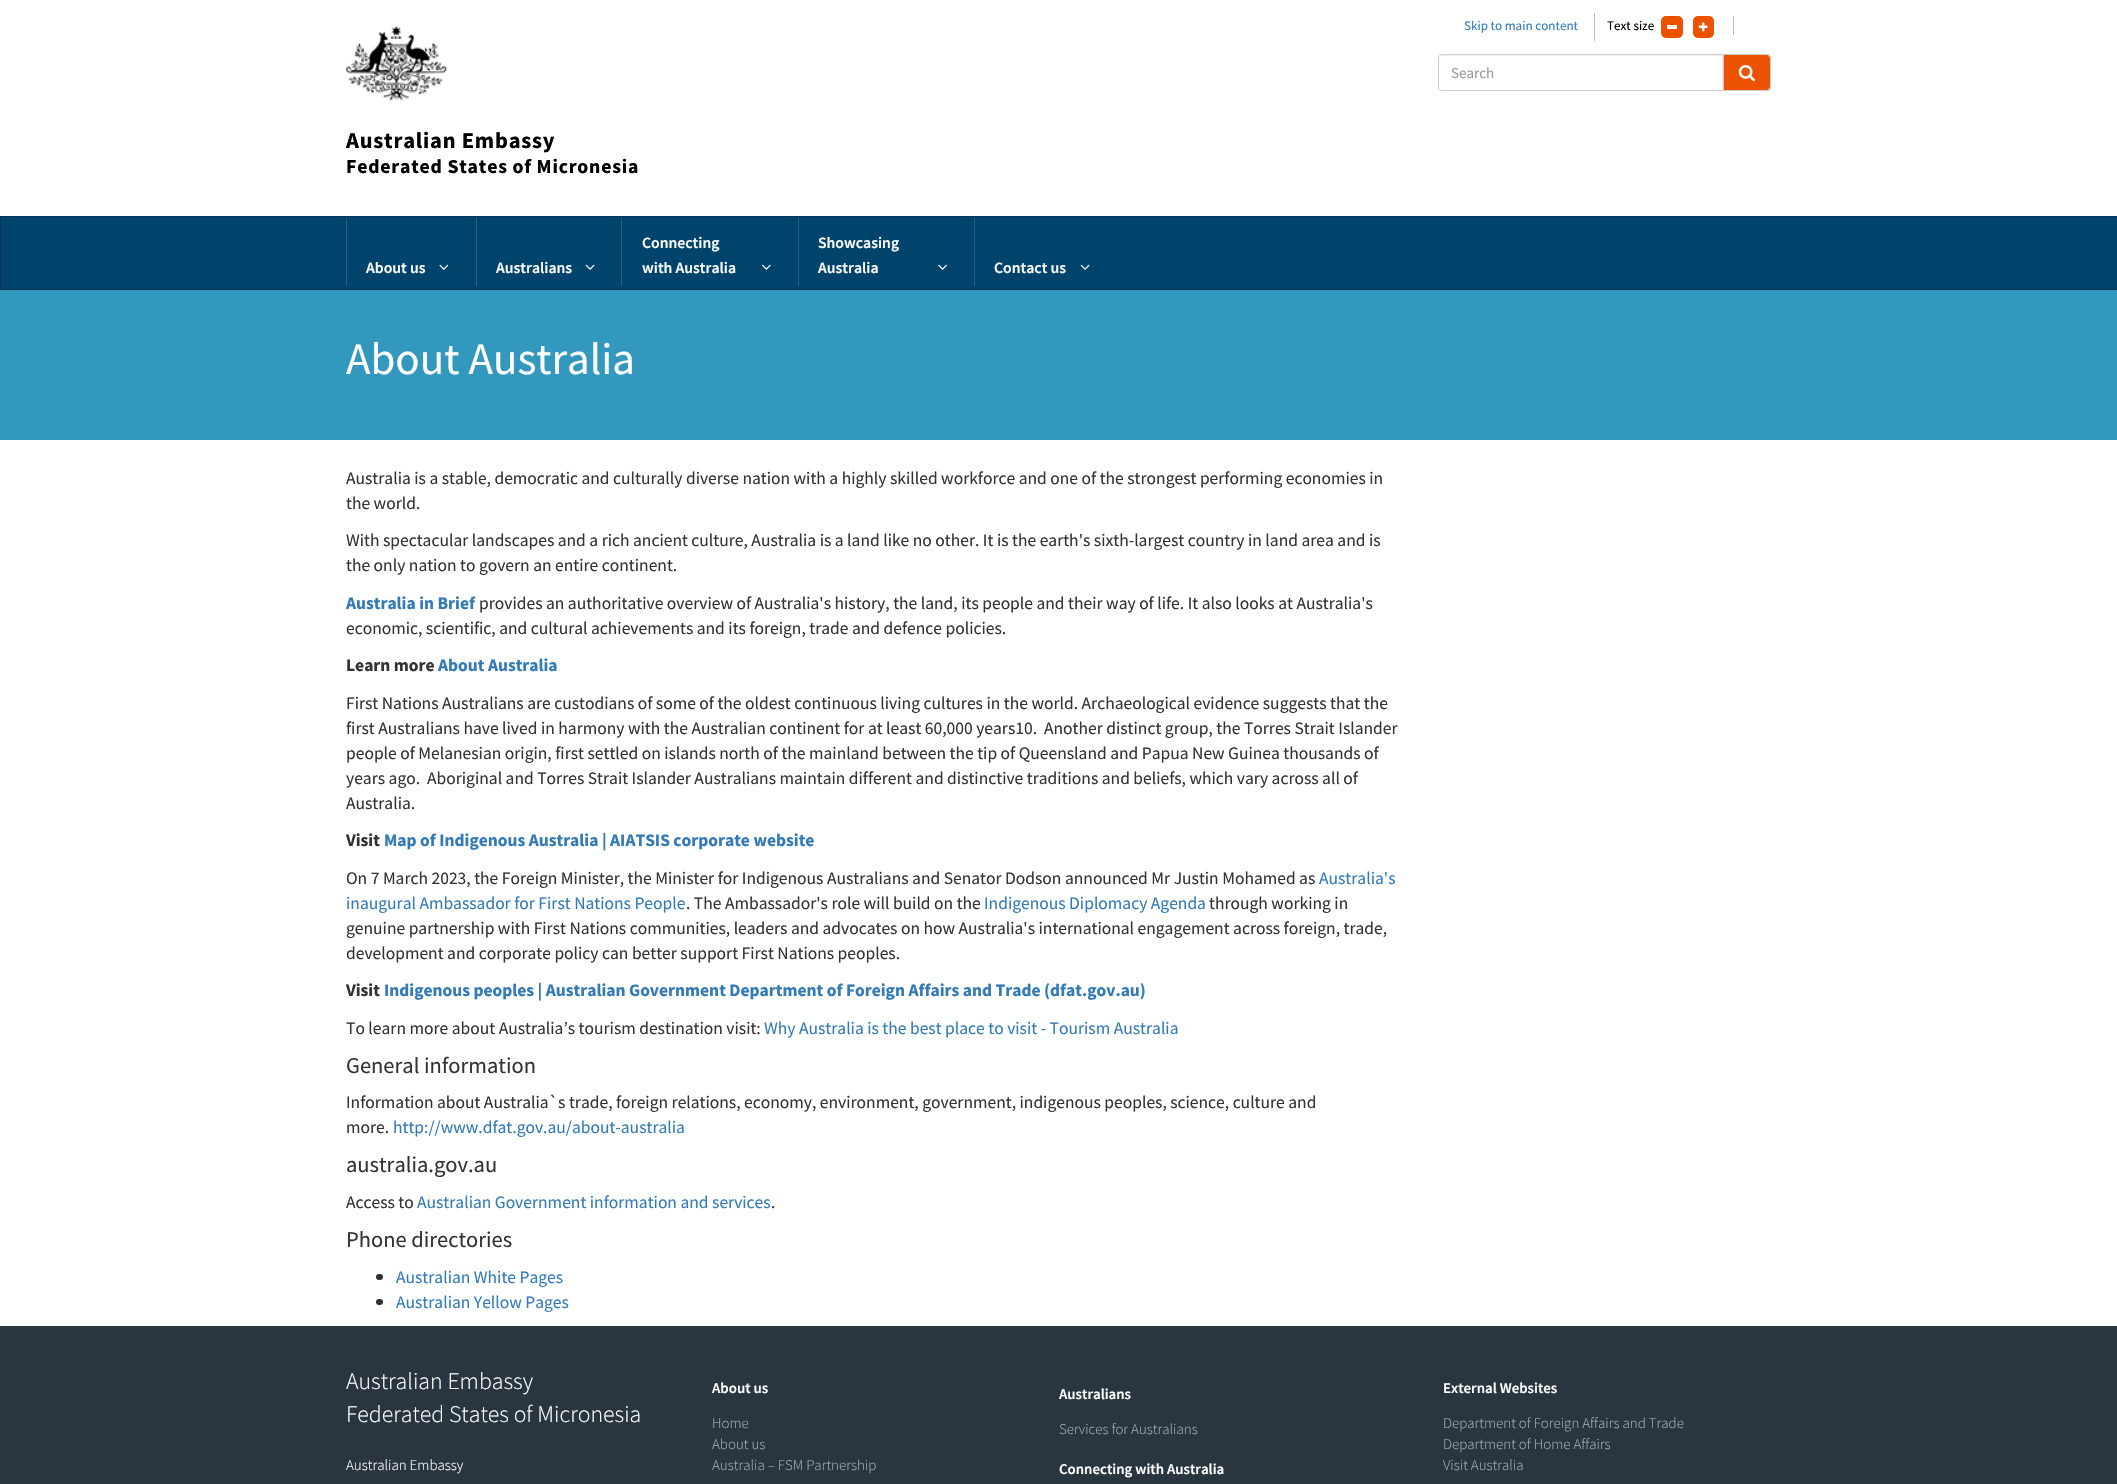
void draw(SkCanvas* canvas) {
	SkPaint fill;
	fill.setAntiAlias(true);
	auto makeFont = [&](const char* family, int weight, float size, bool italic = false) {
		SkFontStyle style(weight, SkFontStyle::kNormal_Width,
			italic ? SkFontStyle::kItalic_Slant : SkFontStyle::kUpright_Slant);
		SkFont result(fontMgr->matchFamilyStyle(family, style), size);
		result.setSubpixel(true);
		return result;
	};
	auto text = [&](const char* s, float x, float y, const SkFont& font) {
		canvas->drawString(s, x, y, font, fill);
	};
	auto spacedText = [&](const char* s, float x, float y, const SkFont& font, const SkPaint& ink, float letter, float word) {
		std::vector<SkGlyphID> glyphs(font.countText(s, strlen(s), SkTextEncoding::kUTF8));
		std::vector<float> xs(glyphs.size());
		font.textToGlyphs(s, strlen(s), SkTextEncoding::kUTF8, glyphs);
		font.getXPos(glyphs, xs, x);
		float extra = 0;
		for (size_t i = 0; i < glyphs.size(); i++) {
			xs[i] += extra;
			extra += letter + word * (glyphs[i] == font.unicharToGlyph(' '));
		}
		canvas->drawTextBlob(SkTextBlob::MakeFromPosHGlyphs(glyphs, xs, y, font), 0, 0, ink);
	};
	auto box = [&](float l, float t, float r, float b) {
		canvas->drawRect(SkRect::MakeLTRB(l, t, r, b), fill);
	};
	auto roundBox = [&](float l, float t, float r, float b, float radius) {
		canvas->drawRoundRect(SkRect::MakeLTRB(l, t, r, b), radius, radius, fill);
	};
	auto picture = [&](const char* path, float l, float t, float r, float b) {
		auto image = SkImages::DeferredFromEncodedData(SkData::MakeFromFileName(path));
		canvas->drawImageRect(image, SkRect::MakeLTRB(l, t, r, b), SkSamplingOptions());
	};
	canvas->clear(0xFFFFFFFF);
	picture("image0.png", 346, 26, 447, 101);
	fill.setColor(0xFFBEBEBE);
	box(1594, 13, 1595, 41);
	fill.setColor(0xFFEC5200);
	roundBox(1661, 16, 1683, 38, 5);
	fill.setColor(0xFFFFFFFF);
	box(1667, 25, 1677, 29);
	fill.setColor(0xFFEC5200);
	roundBox(1693, 16, 1714, 38, 5);
	picture("image1.png", 1698, 22, 1708, 32);
	fill.setColor(0xFFBEBEBE);
	box(1733, 16, 1734, 35);
	fill.setColor(0xFFECECEC);
	canvas->drawPath(SkPathBuilder().moveTo(1441, 56).lineTo(1722, 56).lineTo(1722, 90).lineTo(1723, 90).lineTo(1723, 55).lineTo(1442, 55).cubicTo(1439, 55, 1439, 57, 1439, 59).cubicTo(1439, 57, 1440, 56, 1441, 56).close().detach(), fill);
	fill.setStyle(SkPaint::kStroke_Style);
	fill.setStrokeWidth(1);
	fill.setColor(0xFFCCCCCC);
	canvas->drawPath(SkPathBuilder().moveTo(1442, 54.5f).lineTo(1723.5f, 54.5f).lineTo(1723.5f, 90.5f).lineTo(1442, 90.5f).cubicTo(1440, 90.5f, 1438.5f, 89, 1438.5f, 87).lineTo(1438.5f, 58).cubicTo(1438.5f, 56, 1440, 54.5f, 1442, 54.5f).close().detach(), fill);
	fill.setStyle(SkPaint::kFill_Style);
	fill.setColor(0xFFEC5200);
	canvas->drawPath(SkPathBuilder().moveTo(1724, 54).lineTo(1766, 54).cubicTo(1769, 54, 1771, 56, 1771, 59).lineTo(1771, 86).cubicTo(1771, 89, 1769, 91, 1766, 91).lineTo(1724, 91).close().detach(), fill);
	fill.setColor(0xFFCCCCCC);
	canvas->drawPath(SkPathBuilder(SkPathFillType::kEvenOdd).moveTo(1724, 54).lineTo(1766, 54).cubicTo(1769, 54, 1771, 56, 1771, 59).lineTo(1771, 86).cubicTo(1771, 89, 1769, 91, 1766, 91).lineTo(1724, 91).close().moveTo(1724, 55).lineTo(1766, 55).cubicTo(1768, 55, 1770, 57, 1770, 59).lineTo(1770, 86).cubicTo(1770, 88, 1768, 90, 1766, 90).lineTo(1724, 90).close().detach(), fill);
	picture("image2.png", 1738, 65, 1755, 82);
	fill.setColor(0xFF00446D);
	canvas->drawRect(SkRect::MakeLTRB(0.5f, 216.5f, 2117.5f, 289.5f), fill);
	fill.setStyle(SkPaint::kStroke_Style);
	fill.setColor(0xFF003454);
	canvas->drawRect(SkRect::MakeLTRB(0.5f, 216.5f, 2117.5f, 289.5f), fill);
	fill.setStyle(SkPaint::kFill_Style);
	fill.setColor(0xFF266084);
	box(346, 218, 347, 286);
	picture("image3.png", 439, 264, 449, 270);
	box(476, 218, 477, 286);
	picture("image4.png", 585, 264, 595, 270);
	box(621, 218, 622, 286);
	picture("image5.png", 762, 264, 771, 270);
	box(798, 218, 799, 286);
	picture("image6.png", 938, 264, 947, 270);
	box(974, 218, 975, 286);
	picture("image4.png", 1080, 264, 1090, 270);
	fill.setColor(0xFF3398BD);
	box(0, 290, 2117, 440);
	fill.setColor(0xFF333333);
	roundBox(376, 1274, 383, 1280, 3);
	roundBox(376, 1299, 383, 1305, 3);
	fill.setColor(0xFF29363F);
	box(0, 1326, 2117, 1484);
	auto font1 = makeFont("Source Sans Pro", 400, 13.1f);
	fill.setColor(0xFF337AB7);
	text("Skip to main content", 1464, 30, font1);
	fill.setColor(0xFF000000);
	text("Text size", 1607, 30, font1);
	auto font2 = makeFont("Source Sans Pro", 400, 15);
	fill.setColor(0xFF999999);
	text("Search", 1451, 78, font2);
	auto font3 = makeFont("Source Sans Pro", 700, 22.5f);
	fill.setColor(0xFF000000);
	spacedText("Australian Embassy", 346, 148, font3, fill, 0.8f, 0);
	auto font4 = makeFont("Source Sans Pro", 700, 19.75f);
	spacedText("Federated States of Micronesia", 346, 173, font4, fill, 0.8f, 0);
	auto font5 = makeFont("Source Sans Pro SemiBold", 600, 15.75f);
	fill.setColor(0xFFFFFFFF);
	text("About us", 366, 273, font5);
	text("Australians", 496, 273, font5);
	text("Connecting", 642, 248, font5);
	text("with Australia", 642, 273, font5);
	text("Showcasing", 818, 248, font5);
	text("Australia", 818, 273, font5);
	text("Contact us", 994, 273, font5);
	auto font6 = makeFont("Source Sans Pro", 400, 45);
	text("About Australia", 346, 374, font6);
	auto font7 = makeFont("Source Sans Pro", 400, 17.5f);
	fill.setColor(0xFF333333);
	text("Australia is a stable, democratic and culturally diverse nation with a highly skilled workforce and one of the strongest performing economies in", 346, 484, font7);
	text("the world.", 346, 509, font7);
	text("With spectacular landscapes and a rich ancient culture, Australia is a land like no other. It is the earth's sixth-largest country in land area and is", 346, 546, font7);
	text("the only nation to govern an entire continent.", 346, 571, font7);
	auto font8 = makeFont("Source Sans Pro", 700, 17.5f);
	fill.setColor(0xFF337AB7);
	text("Australia in Brief", 346, 609, font8);
	fill.setColor(0xFF333333);
	text("provides an authoritative overview of Australia's history, the land, its people and their way of life. It also looks at Australia's", 479, 609, font7);
	text("economic, scientific, and cultural achievements and its foreign, trade and defence policies.", 346, 634, font7);
	text("Learn more", 346, 671, font8);
	fill.setColor(0xFF337AB7);
	text("About Australia", 438, 671, font8);
	fill.setColor(0xFF333333);
	text("First Nations Australians are custodians of some of the oldest continuous living cultures in the world. Archaeological evidence suggests that the", 346, 709, font7);
	text("first Australians have lived in harmony with the Australian continent for at least 60,000 years10.  Another distinct group, the Torres Strait Islander", 346, 734, font7);
	text("people of Melanesian origin, first settled on islands north of the mainland between the tip of Queensland and Papua New Guinea thousands of", 346, 759, font7);
	text("years ago.  Aboriginal and Torres Strait Islander Australians maintain different and distinctive traditions and beliefs, which vary across all of", 346, 784, font7);
	text("Australia.", 346, 809, font7);
	text("Visit", 346, 846, font8);
	fill.setColor(0xFF337AB7);
	text("Map of Indigenous Australia | AIATSIS corporate website", 384, 846, font8);
	fill.setColor(0xFF333333);
	text("On 7 March 2023, the Foreign Minister, the Minister for Indigenous Australians and Senator Dodson announced Mr Justin Mohamed as", 346, 884, font7);
	fill.setColor(0xFF337AB7);
	text("Australia's", 1319, 884, font7);
	text("inaugural Ambassador for First Nations People", 346, 909, font7);
	fill.setColor(0xFF333333);
	text(". The Ambassador's role will build on the", 686, 909, font7);
	fill.setColor(0xFF337AB7);
	text("Indigenous Diplomacy Agenda", 984, 909, font7);
	fill.setColor(0xFF333333);
	text("through working in", 1209, 909, font7);
	text("genuine partnership with First Nations communities, leaders and advocates on how Australia's international engagement across foreign, trade,", 346, 934, font7);
	text("development and corporate policy can better support First Nations peoples.", 346, 959, font7);
	text("Visit", 346, 996, font8);
	fill.setColor(0xFF337AB7);
	text("Indigenous peoples | Australian Government Department of Foreign Affairs and Trade (dfat.gov.au)", 384, 996, font8);
	fill.setColor(0xFF333333);
	text("To learn more about Australia’s tourism destination visit:", 346, 1034, font7);
	fill.setColor(0xFF337AB7);
	text("Why Australia is the best place to visit - Tourism Australia", 764, 1034, font7);
	auto font9 = makeFont("Source Sans Pro", 400, 22.5f);
	fill.setColor(0xFF333333);
	text("General information", 346, 1073, font9);
	text("Information about Australia`s trade, foreign relations, economy, environment, government, indigenous peoples, science, culture and", 346, 1108, font7);
	text("more.", 346, 1133, font7);
	fill.setColor(0xFF337AB7);
	text("http://www.dfat.gov.au/about-australia", 393, 1133, font7);
	fill.setColor(0xFF333333);
	text("australia.gov.au", 346, 1172, font9);
	text("Access to", 346, 1208, font7);
	fill.setColor(0xFF337AB7);
	text("Australian Government information and services", 417, 1208, font7);
	fill.setColor(0xFF333333);
	text(".", 771, 1208, font7);
	text("Phone directories", 346, 1247, font9);
	fill.setColor(0xFF337AB7);
	text("Australian White Pages", 396, 1283, font7);
	text("Australian Yellow Pages", 396, 1308, font7);
	auto font10 = makeFont("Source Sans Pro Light", 300, 23.75f);
	fill.setColor(0xFFFFFFFF);
	text("Australian Embassy", 346, 1389, font10);
	text("Federated States of Micronesia", 346, 1422, font10);
	auto font11 = makeFont("Source Sans Pro Light", 300, 14.9f);
	text("Australian Embassy", 346, 1470, font11);
	auto font12 = makeFont("Source Sans Pro SemiBold", 600, 14.9f);
	text("About us", 712, 1393, font12);
	fill.setColor(0xFFA4B0BE);
	text("Home", 712, 1428, font11);
	text("About us", 712, 1449, font11);
	text("Australia – FSM Partnership", 712, 1470, font11);
	fill.setColor(0xFFFFFFFF);
	text("Australians", 1059, 1399, font12);
	fill.setColor(0xFFA4B0BE);
	text("Services for Australians", 1059, 1434, font11);
	fill.setColor(0xFFFFFFFF);
	text("Connecting with Australia", 1059, 1474, font12);
	text("External Websites", 1443, 1393, font12);
	fill.setColor(0xFFA4B0BE);
	text("Department of Foreign Affairs and Trade", 1443, 1428, font11);
	text("Department of Home Affairs", 1443, 1449, font11);
	text("Visit Australia", 1443, 1470, font11);
}
